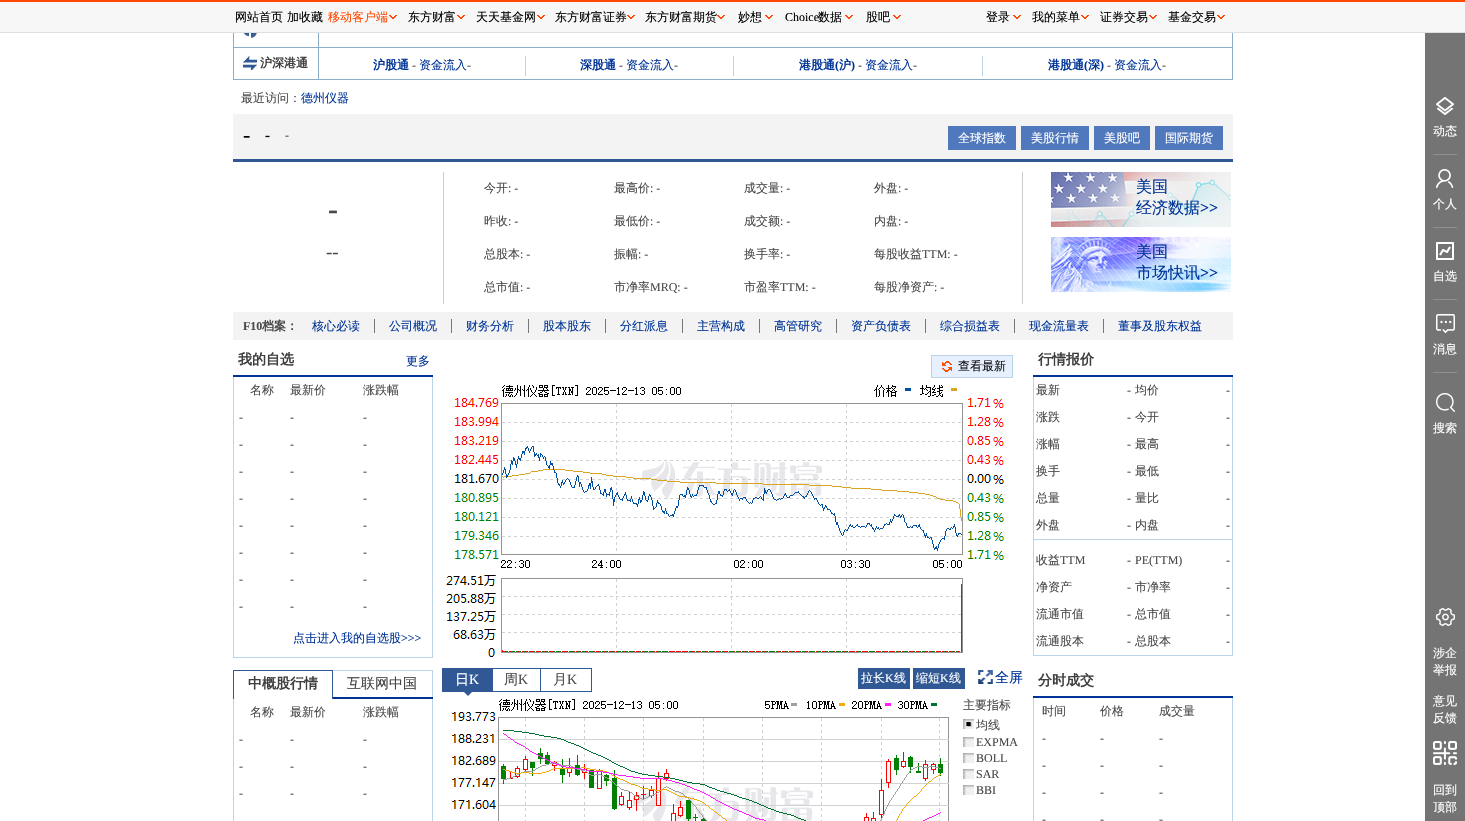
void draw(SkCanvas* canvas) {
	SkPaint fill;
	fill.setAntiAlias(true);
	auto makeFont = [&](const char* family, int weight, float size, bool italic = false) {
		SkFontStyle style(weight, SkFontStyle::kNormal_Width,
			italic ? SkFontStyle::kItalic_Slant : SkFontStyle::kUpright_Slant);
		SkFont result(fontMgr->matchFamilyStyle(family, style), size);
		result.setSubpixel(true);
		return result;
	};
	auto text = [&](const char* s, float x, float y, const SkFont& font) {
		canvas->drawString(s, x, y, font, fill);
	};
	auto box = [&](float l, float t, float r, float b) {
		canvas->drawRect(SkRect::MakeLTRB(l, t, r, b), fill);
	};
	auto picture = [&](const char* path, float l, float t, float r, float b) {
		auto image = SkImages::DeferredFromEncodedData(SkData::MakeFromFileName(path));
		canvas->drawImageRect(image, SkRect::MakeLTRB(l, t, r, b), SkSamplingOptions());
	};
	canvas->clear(0xFFFFFFFF);
	fill.setStyle(SkPaint::kStroke_Style);
	fill.setStrokeWidth(1);
	fill.setColor(0xFF8EAEC8);
	canvas->drawRect(SkRect::MakeLTRB(233.5f, -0.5f, 1232.5f, 79.5f), fill);
	fill.setStyle(SkPaint::kFill_Style);
	fill.setColor(0xFFF7F7F7);
	box(0, 2, 1465, 32);
	fill.setColor(0xFFFF4901);
	box(0, 0, 1465, 2);
	fill.setColor(0xFFDFDFDF);
	box(0, 32, 1465, 33);
	picture("image0.png", 389, 15, 397, 19);
	picture("image0.png", 457, 15, 465, 19);
	picture("image0.png", 537, 15, 545, 19);
	picture("image0.png", 627, 15, 635, 19);
	picture("image0.png", 717, 15, 725, 19);
	picture("image0.png", 765, 15, 773, 19);
	picture("image0.png", 845, 15, 853, 19);
	picture("image0.png", 893, 15, 901, 19);
	picture("image0.png", 1013, 15, 1021, 19);
	picture("image0.png", 1081, 15, 1089, 19);
	picture("image0.png", 1149, 15, 1157, 19);
	picture("image0.png", 1217, 15, 1225, 19);
	fill.setColor(0xFF8EAEC8);
	box(234, 47, 1232, 48);
	box(318, 33, 319, 47);
	picture("image1.png", 244, 33, 257, 38);
	box(318, 48, 319, 79);
	picture("image2.png", 243, 56, 257, 70);
	fill.setColor(0xFFBBD4E8);
	box(525, 56, 526, 76);
	box(733, 56, 734, 76);
	box(982, 56, 983, 76);
	fill.setColor(0xFFF3F3F3);
	box(233, 114, 1233, 159);
	fill.setColor(0xFF2F5895);
	box(233, 159, 1233, 162);
	fill.setColor(0xFF4F78BD);
	box(948, 126, 1016, 150);
	box(1021, 126, 1089, 150);
	box(1094, 126, 1150, 150);
	box(1155, 126, 1223, 150);
	fill.setColor(0xFFCCCCCC);
	box(1022, 172, 1023, 304);
	box(443, 172, 444, 304);
	picture("image3.png", 1051, 172, 1231, 227);
	picture("image4.png", 1051, 237, 1231, 292);
	fill.setColor(0xFFF3F3F3);
	box(233, 312, 1233, 340);
	fill.setColor(0xFF777777);
	box(374, 319, 375, 333);
	box(451, 319, 452, 333);
	box(528, 319, 529, 333);
	box(605, 319, 606, 333);
	box(682, 319, 683, 333);
	box(759, 319, 760, 333);
	box(836, 319, 837, 333);
	box(925, 319, 926, 333);
	box(1014, 319, 1015, 333);
	box(1103, 319, 1104, 333);
	fill.setColor(0xFF003399);
	box(233, 375, 433, 377);
	fill.setColor(0xFFBBD4E8);
	box(432, 377, 433, 658);
	box(233, 657, 433, 658);
	box(233, 377, 234, 658);
	fill.setColor(0xFF003399);
	box(333, 697, 433, 699);
	fill.setColor(0xFF2F5895);
	box(233, 670, 333, 671);
	box(332, 670, 333, 699);
	box(233, 670, 234, 699);
	fill.setColor(0xFFBBD4E8);
	box(333, 670, 433, 671);
	box(432, 670, 433, 697);
	box(432, 699, 433, 821);
	box(233, 699, 234, 821);
	fill.setColor(0xFFE6F0FF);
	box(932, 356, 1012, 377);
	picture("image5.png", 942, 361, 952, 372);
	fill.setStyle(SkPaint::kStroke_Style);
	fill.setColor(0xFFBBD4E8);
	canvas->drawRect(SkRect::MakeLTRB(931.5f, 355.5f, 1012.5f, 377.5f), fill);
	picture("image6.png", 446, 385, 1004, 657);
	fill.setStyle(SkPaint::kFill_Style);
	fill.setColor(0xFF2F5895);
	box(491, 668, 542, 669);
	box(491, 691, 542, 692);
	box(442, 668, 493, 692);
	canvas->drawPath(SkPathBuilder().moveTo(463, 691).lineTo(473, 691).lineTo(468, 696).close().detach(), fill);
	fill.setStyle(SkPaint::kStroke_Style);
	canvas->drawRect(SkRect::MakeLTRB(540.5f, 668.5f, 591.5f, 691.5f), fill);
	fill.setStyle(SkPaint::kFill_Style);
	box(858, 668, 910, 689);
	box(913, 668, 965, 689);
	picture("image7.png", 978, 670, 993, 684);
	picture("image8.png", 451, 699, 949, 821);
	picture("image9.png", 963, 719, 974, 729);
	picture("image10.png", 963, 737, 974, 747);
	picture("image10.png", 963, 753, 974, 763);
	picture("image10.png", 963, 769, 974, 779);
	picture("image10.png", 963, 785, 974, 795);
	fill.setColor(0xFF003399);
	box(1033, 375, 1233, 377);
	fill.setColor(0xFFBBD4E8);
	box(1232, 377, 1233, 656);
	box(1033, 655, 1233, 656);
	box(1033, 377, 1034, 656);
	box(1034, 539, 1232, 540);
	fill.setColor(0xFF003399);
	box(1033, 696, 1233, 698);
	fill.setColor(0xFFBBD4E8);
	box(1232, 698, 1233, 821);
	box(1033, 698, 1034, 821);
	fill.setColor(0xFF747474);
	box(1425, 33, 1465, 821);
	picture("image11.png", 1436, 97, 1454, 115);
	fill.setColor(0xFF909090);
	box(1433, 154, 1457, 155);
	picture("image12.png", 1436, 169, 1454, 188);
	box(1433, 227, 1457, 228);
	picture("image13.png", 1436, 242, 1454, 260);
	box(1433, 299, 1457, 300);
	picture("image14.png", 1436, 314, 1455, 333);
	box(1433, 372, 1457, 373);
	picture("image15.png", 1436, 393, 1455, 412);
	picture("image16.png", 1436, 608, 1455, 626);
	picture("image17.png", 1433, 741, 1457, 765);
	auto font1 = makeFont("WenQuanYi Zen Hei", 500, 12);
	fill.setColor(0xFF000000);
	text("网站首页", 235, 21, font1);
	text("加收藏", 287, 21, font1);
	fill.setColor(0xFFFF4900);
	text("移动客户端", 328, 21, font1);
	fill.setColor(0xFF000000);
	text("东方财富", 408, 21, font1);
	text("天天基金网", 476, 21, font1);
	text("东方财富证券", 555, 21, font1);
	text("东方财富期货", 645, 21, font1);
	text("妙想", 738, 21, font1);
	auto font2 = makeFont("Liberation Serif", 400, 12);
	text("Choice", 785, 21, font2);
	text("数据", 818, 21, font1);
	text("股吧", 866, 21, font1);
	text("登录", 986, 21, font1);
	text("我的菜单", 1032, 21, font1);
	text("证券交易", 1100, 21, font1);
	text("基金交易", 1168, 21, font1);
	auto font3 = makeFont("WenQuanYi Zen Hei", 700, 12);
	fill.setColor(0xFF3F3F3F);
	text("沪深港通", 260, 67, font3);
	fill.setColor(0xFF003497);
	text("沪股通", 373, 69, font3);
	fill.setColor(0xFF494949);
	text("-", 412, 69, font2);
	fill.setColor(0xFF003497);
	text("资金流入", 419, 69, font1);
	fill.setColor(0xFF494949);
	text("-", 467, 69, font2);
	fill.setColor(0xFF003497);
	text("深股通", 580, 69, font3);
	fill.setColor(0xFF494949);
	text("-", 619, 69, font2);
	fill.setColor(0xFF003497);
	text("资金流入", 626, 69, font1);
	fill.setColor(0xFF494949);
	text("-", 674, 69, font2);
	fill.setColor(0xFF003497);
	text("港股通", 799, 69, font3);
	auto font4 = makeFont("Liberation Serif", 700, 12);
	text("(", 835, 69, font4);
	text("沪", 839, 69, font3);
	text(")", 851, 69, font4);
	fill.setColor(0xFF494949);
	text("-", 858, 69, font2);
	fill.setColor(0xFF003497);
	text("资金流入", 865, 69, font1);
	fill.setColor(0xFF494949);
	text("-", 913, 69, font2);
	fill.setColor(0xFF003497);
	text("港股通", 1048, 69, font3);
	text("(", 1084, 69, font4);
	text("深", 1088, 69, font3);
	text(")", 1100, 69, font4);
	fill.setColor(0xFF494949);
	text("-", 1107, 69, font2);
	fill.setColor(0xFF003497);
	text("资金流入", 1114, 69, font1);
	fill.setColor(0xFF494949);
	text("-", 1162, 69, font2);
	text("最近访问：", 241, 102, font1);
	fill.setColor(0xFF003497);
	text("德州仪器", 301, 102, font1);
	auto font5 = makeFont("Liberation Serif", 400, 22);
	fill.setColor(0xFF000000);
	text("-", 243, 142, font5);
	auto font6 = makeFont("Liberation Serif", 700, 15);
	text("-", 265, 140, font6);
	fill.setColor(0xFF494949);
	text("-", 285, 139, font2);
	fill.setColor(0xFFFFFFFF);
	text("全球指数", 958, 142, font1);
	text("美股行情", 1031, 142, font1);
	text("美股吧", 1104, 142, font1);
	text("国际期货", 1165, 142, font1);
	auto font7 = makeFont("Liberation Serif", 700, 30);
	fill.setColor(0xFF494949);
	text("-", 328, 219, font7);
	auto font8 = makeFont("Liberation Serif", 400, 19);
	text("--", 326, 258, font8);
	text("今开", 484, 192, font1);
	text(": -", 508, 192, font2);
	text("最高价", 614, 192, font1);
	text(": -", 650, 192, font2);
	text("成交量", 744, 192, font1);
	text(": -", 780, 192, font2);
	text("外盘", 874, 192, font1);
	text(": -", 898, 192, font2);
	text("昨收", 484, 225, font1);
	text(": -", 508, 225, font2);
	text("最低价", 614, 225, font1);
	text(": -", 650, 225, font2);
	text("成交额", 744, 225, font1);
	text(": -", 780, 225, font2);
	text("内盘", 874, 225, font1);
	text(": -", 898, 225, font2);
	text("总股本", 484, 258, font1);
	text(": -", 520, 258, font2);
	text("振幅", 614, 258, font1);
	text(": -", 638, 258, font2);
	text("换手率", 744, 258, font1);
	text(": -", 780, 258, font2);
	text("每股收益", 874, 258, font1);
	text("TTM: -", 922, 258, font2);
	text("总市值", 484, 291, font1);
	text(": -", 520, 291, font2);
	text("市净率", 614, 291, font1);
	text("MRQ: -", 650, 291, font2);
	text("市盈率", 744, 291, font1);
	text("TTM: -", 780, 291, font2);
	text("每股净资产", 874, 291, font1);
	text(": -", 934, 291, font2);
	auto font9 = makeFont("WenQuanYi Zen Hei", 500, 16);
	fill.setColor(0xFF003497);
	text("美国", 1136, 192, font9);
	text("经济数据", 1136, 213, font9);
	auto font10 = makeFont("Liberation Serif", 700, 16);
	text(">>", 1200, 213, font10);
	text("美国", 1136, 257, font9);
	text("市场快讯", 1136, 278, font9);
	text(">>", 1200, 278, font10);
	fill.setColor(0xFF494949);
	text("F10", 243, 330, font4);
	text("档案：", 262, 330, font3);
	fill.setColor(0xFF003497);
	text("核心必读", 312, 330, font1);
	text("公司概况", 389, 330, font1);
	text("财务分析", 466, 330, font1);
	text("股本股东", 543, 330, font1);
	text("分红派息", 620, 330, font1);
	text("主营构成", 697, 330, font1);
	text("高管研究", 774, 330, font1);
	text("资产负债表", 851, 330, font1);
	text("综合损益表", 940, 330, font1);
	text("现金流量表", 1029, 330, font1);
	text("董事及股东权益", 1118, 330, font1);
	auto font11 = makeFont("WenQuanYi Zen Hei", 700, 14);
	fill.setColor(0xFF3F3F3F);
	text("我的自选", 238, 364, font11);
	fill.setColor(0xFF003497);
	text("更多", 406, 365, font1);
	fill.setColor(0xFF494949);
	text("名称", 250, 394, font1);
	text("最新价", 290, 394, font1);
	text("涨跌幅", 363, 394, font1);
	text("-", 239, 421, font2);
	text("-", 290, 421, font2);
	text("-", 363, 421, font2);
	text("-", 239, 448, font2);
	text("-", 290, 448, font2);
	text("-", 363, 448, font2);
	text("-", 239, 475, font2);
	text("-", 290, 475, font2);
	text("-", 363, 475, font2);
	text("-", 239, 502, font2);
	text("-", 290, 502, font2);
	text("-", 363, 502, font2);
	text("-", 239, 529, font2);
	text("-", 290, 529, font2);
	text("-", 363, 529, font2);
	text("-", 239, 556, font2);
	text("-", 290, 556, font2);
	text("-", 363, 556, font2);
	text("-", 239, 583, font2);
	text("-", 290, 583, font2);
	text("-", 363, 583, font2);
	text("-", 239, 610, font2);
	text("-", 290, 610, font2);
	text("-", 363, 610, font2);
	fill.setColor(0xFF003497);
	text("点击进入我的自选股", 293, 642, font1);
	text(">>>", 401, 642, font2);
	fill.setColor(0xFF3F3F3F);
	text("中概股行情", 248, 688, font11);
	auto font12 = makeFont("WenQuanYi Zen Hei", 500, 14);
	text("互联网中国", 347, 688, font12);
	fill.setColor(0xFF494949);
	text("名称", 250, 716, font1);
	text("最新价", 290, 716, font1);
	text("涨跌幅", 363, 716, font1);
	text("-", 239, 743, font2);
	text("-", 290, 743, font2);
	text("-", 363, 743, font2);
	text("-", 239, 770, font2);
	text("-", 290, 770, font2);
	text("-", 363, 770, font2);
	text("-", 239, 797, font2);
	text("-", 290, 797, font2);
	text("-", 363, 797, font2);
	fill.setColor(0xFF111111);
	text("查看最新", 958, 370, font1);
	fill.setColor(0xFFFFFFFF);
	text("日", 455, 684, font12);
	auto font13 = makeFont("Liberation Serif", 400, 14);
	text("K", 469, 684, font13);
	fill.setColor(0xFF494949);
	text("周", 504, 684, font12);
	text("K", 518, 684, font13);
	text("月", 553, 684, font12);
	text("K", 567, 684, font13);
	fill.setColor(0xFFFFFFFF);
	text("拉长", 861, 682, font1);
	text("K", 885, 682, font2);
	text("线", 894, 682, font1);
	text("缩短", 916, 682, font1);
	text("K", 940, 682, font2);
	text("线", 949, 682, font1);
	fill.setColor(0xFF003497);
	text("全屏", 995, 682, font12);
	fill.setColor(0xFF494949);
	text("主要指标", 963, 709, font1);
	text("均线", 976, 729, font1);
	text("EXPMA", 976, 746, font2);
	text("BOLL", 976, 762, font2);
	text("SAR", 976, 778, font2);
	text("BBI", 976, 794, font2);
	fill.setColor(0xFF3F3F3F);
	text("行情报价", 1038, 364, font11);
	fill.setColor(0xFF494949);
	text("最新", 1036, 394, font1);
	text("-", 1127, 394, font2);
	text("均价", 1135, 394, font1);
	text("-", 1226, 394, font2);
	text("涨跌", 1036, 421, font1);
	text("-", 1127, 421, font2);
	text("今开", 1135, 421, font1);
	text("-", 1226, 421, font2);
	text("涨幅", 1036, 448, font1);
	text("-", 1127, 448, font2);
	text("最高", 1135, 448, font1);
	text("-", 1226, 448, font2);
	text("换手", 1036, 475, font1);
	text("-", 1127, 475, font2);
	text("最低", 1135, 475, font1);
	text("-", 1226, 475, font2);
	text("总量", 1036, 502, font1);
	text("-", 1127, 502, font2);
	text("量比", 1135, 502, font1);
	text("-", 1226, 502, font2);
	text("外盘", 1036, 529, font1);
	text("-", 1127, 529, font2);
	text("内盘", 1135, 529, font1);
	text("-", 1226, 529, font2);
	text("收益", 1036, 564, font1);
	text("TTM", 1060, 564, font2);
	text("-", 1127, 564, font2);
	text("PE(TTM)", 1135, 564, font2);
	text("-", 1226, 564, font2);
	text("净资产", 1036, 591, font1);
	text("-", 1127, 591, font2);
	text("市净率", 1135, 591, font1);
	text("-", 1226, 591, font2);
	text("流通市值", 1036, 618, font1);
	text("-", 1127, 618, font2);
	text("总市值", 1135, 618, font1);
	text("-", 1226, 618, font2);
	text("流通股本", 1036, 645, font1);
	text("-", 1127, 645, font2);
	text("总股本", 1135, 645, font1);
	text("-", 1226, 645, font2);
	fill.setColor(0xFF3F3F3F);
	text("分时成交", 1038, 685, font11);
	fill.setColor(0xFF494949);
	text("时间", 1042, 715, font1);
	text("价格", 1100, 715, font1);
	text("成交量", 1159, 715, font1);
	text("-", 1042, 742, font2);
	text("-", 1100, 742, font2);
	text("-", 1159, 742, font2);
	text("-", 1042, 769, font2);
	text("-", 1100, 769, font2);
	text("-", 1159, 769, font2);
	text("-", 1042, 796, font2);
	text("-", 1100, 796, font2);
	text("-", 1159, 796, font2);
	text("-", 1042, 823, font2);
	text("-", 1100, 823, font2);
	text("-", 1159, 823, font2);
	fill.setColor(0xFFFFFFFF);
	text("动态", 1433, 135, font1);
	text("个人", 1433, 208, font1);
	text("自选", 1433, 280, font1);
	text("消息", 1433, 353, font1);
	text("搜索", 1433, 432, font1);
	text("涉企", 1433, 657, font1);
	text("举报", 1433, 674, font1);
	text("意见", 1433, 705, font1);
	text("反馈", 1433, 722, font1);
	text("回到", 1433, 794, font1);
	text("顶部", 1433, 811, font1);
}
